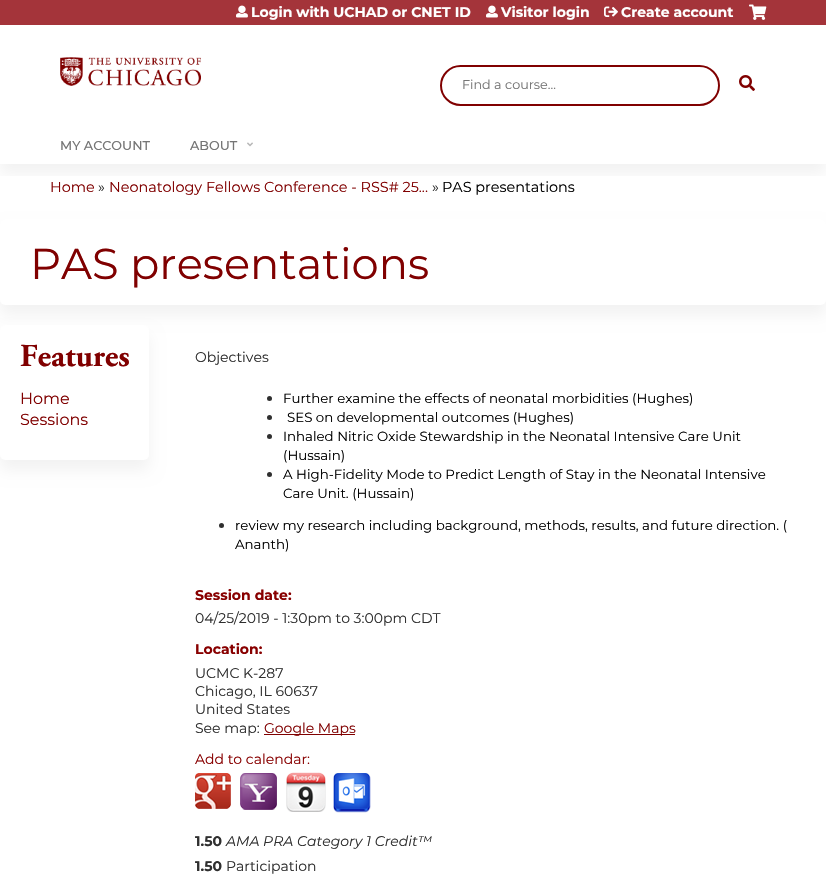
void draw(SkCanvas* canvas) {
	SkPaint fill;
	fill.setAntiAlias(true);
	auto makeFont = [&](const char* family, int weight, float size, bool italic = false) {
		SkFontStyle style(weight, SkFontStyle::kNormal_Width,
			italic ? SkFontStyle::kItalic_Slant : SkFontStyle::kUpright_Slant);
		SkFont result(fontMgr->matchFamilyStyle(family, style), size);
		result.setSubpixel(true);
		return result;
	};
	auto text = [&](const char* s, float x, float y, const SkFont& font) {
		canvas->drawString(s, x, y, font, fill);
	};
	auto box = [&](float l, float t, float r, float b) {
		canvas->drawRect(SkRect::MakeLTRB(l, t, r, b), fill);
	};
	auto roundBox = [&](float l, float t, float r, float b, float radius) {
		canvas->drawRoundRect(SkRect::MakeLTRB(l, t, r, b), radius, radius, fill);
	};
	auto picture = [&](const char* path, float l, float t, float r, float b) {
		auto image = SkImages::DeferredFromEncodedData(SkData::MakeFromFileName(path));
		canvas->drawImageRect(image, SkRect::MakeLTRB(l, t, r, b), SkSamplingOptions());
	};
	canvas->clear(0xFFFFFFFF);
	fill.setColor(0xFFA4343A);
	box(0, 0, 826, 25);
	picture("image0.png", 60, 57, 201, 86);
	picture("image1.png", 236, 5, 248, 18);
	picture("image1.png", 486, 5, 498, 18);
	picture("image2.png", 604, 6, 618, 17);
	picture("image3.png", 749, 4, 767, 20);
	fill.setStyle(SkPaint::kStroke_Style);
	fill.setStrokeWidth(2);
	fill.setColor(0xFF800000);
	canvas->drawRoundRect(SkRect::MakeLTRB(441, 66, 719, 105), 19.5f, 19.5f, fill);
	picture("image4.png", 739, 75, 755, 91);
	canvas->save();
	canvas->clipRect(SkRect::MakeLTRB(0, 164, 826, 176));
	fill.setStyle(SkPaint::kFill_Style);
	fill.setColor(0x0D000000);
	fill.setMaskFilter(SkMaskFilter::MakeBlur(kNormal_SkBlurStyle, 7.5f));
	canvas->drawRect(SkRect::MakeLTRB(0, 136, 826, 174), fill);
	fill.setMaskFilter(nullptr);
	canvas->restore();
	picture("image5.png", 247, 142, 253, 147);
	fill.setMaskFilter(SkMaskFilter::MakeBlur(kNormal_SkBlurStyle, 7.5f));
	canvas->drawRoundRect(SkRect::MakeLTRB(0, 229, 826, 315), 5, 5, fill);
	fill.setMaskFilter(nullptr);
	fill.setColor(0xFFFFFFFF);
	roundBox(0, 219, 826, 305, 5);
	fill.setColor(0x0D000000);
	fill.setMaskFilter(SkMaskFilter::MakeBlur(kNormal_SkBlurStyle, 7.5f));
	canvas->drawRoundRect(SkRect::MakeLTRB(0, 335, 149, 470), 5, 5, fill);
	fill.setMaskFilter(nullptr);
	fill.setColor(0xFFFFFFFF);
	roundBox(0, 325, 149, 460, 5);
	fill.setColor(0xFF2F2F2F);
	canvas->drawCircle(269.5f, 398.5f, 2.5f, fill);
	canvas->drawCircle(269.5f, 417.5f, 2.5f, fill);
	canvas->drawCircle(269.5f, 436.5f, 2.5f, fill);
	canvas->drawCircle(269.5f, 474.5f, 2.5f, fill);
	canvas->drawCircle(221.5f, 525.5f, 2.5f, fill);
	fill.setColor(0xFF800000);
	box(264, 734, 355, 735);
	picture("image6.png", 195, 773, 231, 809);
	picture("image7.png", 240, 773, 277, 810);
	picture("image8.png", 286, 772, 326, 812);
	picture("image9.png", 333, 773, 371, 813);
	auto font1 = makeFont("Montserrat", 700, 14);
	fill.setColor(0xFFFFFFFF);
	text("Login with UCHAD or CNET ID", 251, 17, font1);
	text("Visitor login", 501, 17, font1);
	text("Create account", 621, 17, font1);
	auto font2 = makeFont("Montserrat", 400, 12.75f);
	fill.setColor(0xFF757575);
	text("Find a course...", 462, 89, font2);
	auto font3 = makeFont("Montserrat", 500, 12.75f);
	text("MY ACCOUNT", 60, 150, font3);
	text("ABOUT", 190, 150, font3);
	auto font4 = makeFont("Montserrat", 400, 14.4f);
	fill.setColor(0xFF800000);
	text("Home", 50, 192, font4);
	fill.setColor(0xFF2F2F2F);
	text("»", 98, 192, font4);
	fill.setColor(0xFF800000);
	text("Neonatology Fellows Conference - RSS# 25...", 109, 192, font4);
	fill.setColor(0xFF2F2F2F);
	text("»", 432, 192, font4);
	fill.setColor(0xFF000000);
	text("PAS presentations", 442, 192, font4);
	auto font5 = makeFont("Montserrat", 400, 43.25f);
	fill.setColor(0xFF800000);
	text("PAS presentations", 30, 279, font5);
	auto font6 = makeFont("Adobe Garamond", 700, 32);
	text("Features", 20, 366, font6);
	auto font7 = makeFont("Montserrat", 400, 16);
	text("Home", 20, 404, font7);
	text("Sessions", 20, 425, font7);
	auto font8 = makeFont("Montserrat", 400, 14);
	fill.setColor(0xFF2F2F2F);
	text("Objectives", 195, 362, font8);
	auto font9 = makeFont("Montserrat", 400, 13.35f);
	fill.setColor(0xFF000000);
	text("Further examine the effects of neonatal morbidities (Hughes)", 283, 403, font9);
	text("SES on developmental outcomes (Hughes)", 287, 422, font9);
	text("Inhaled Nitric Oxide Stewardship in the Neonatal Intensive Care Unit", 283, 441, font9);
	text("(Hussain)", 283, 460, font9);
	text("A High-Fidelity Mode to Predict Length of Stay in the Neonatal Intensive", 283, 479, font9);
	text("Care Unit. (Hussain)", 283, 498, font9);
	text("review my research including background, methods, results, and future direction. (", 235, 530, font9);
	text("Ananth)", 235, 549, font9);
	fill.setColor(0xFF880000);
	text("Session date:", 195, 600, font1);
	fill.setColor(0xFF2F2F2F);
	text("04/25/2019 - 1:30pm to 3:00pm CDT", 195, 623, font8);
	fill.setColor(0xFF880000);
	text("Location:", 195, 654, font1);
	fill.setColor(0xFF2F2F2F);
	text("UCMC K-287", 195, 678, font8);
	text("Chicago, IL 60637", 195, 696, font8);
	text("United States", 195, 714, font8);
	text("See map:", 195, 733, font8);
	fill.setColor(0xFF800000);
	text("Google Maps", 264, 733, font8);
	fill.setColor(0xFF880000);
	text("Add to calendar:", 195, 764, font8);
	fill.setColor(0xFF2F2F2F);
	text("1.50", 195, 846, font1);
	auto font10 = makeFont("Montserrat", 400, 14, true);
	text("AMA PRA Category 1 Credit™", 226, 846, font10);
	text("1.50", 195, 871, font1);
	text("Participation", 226, 871, font8);
}
